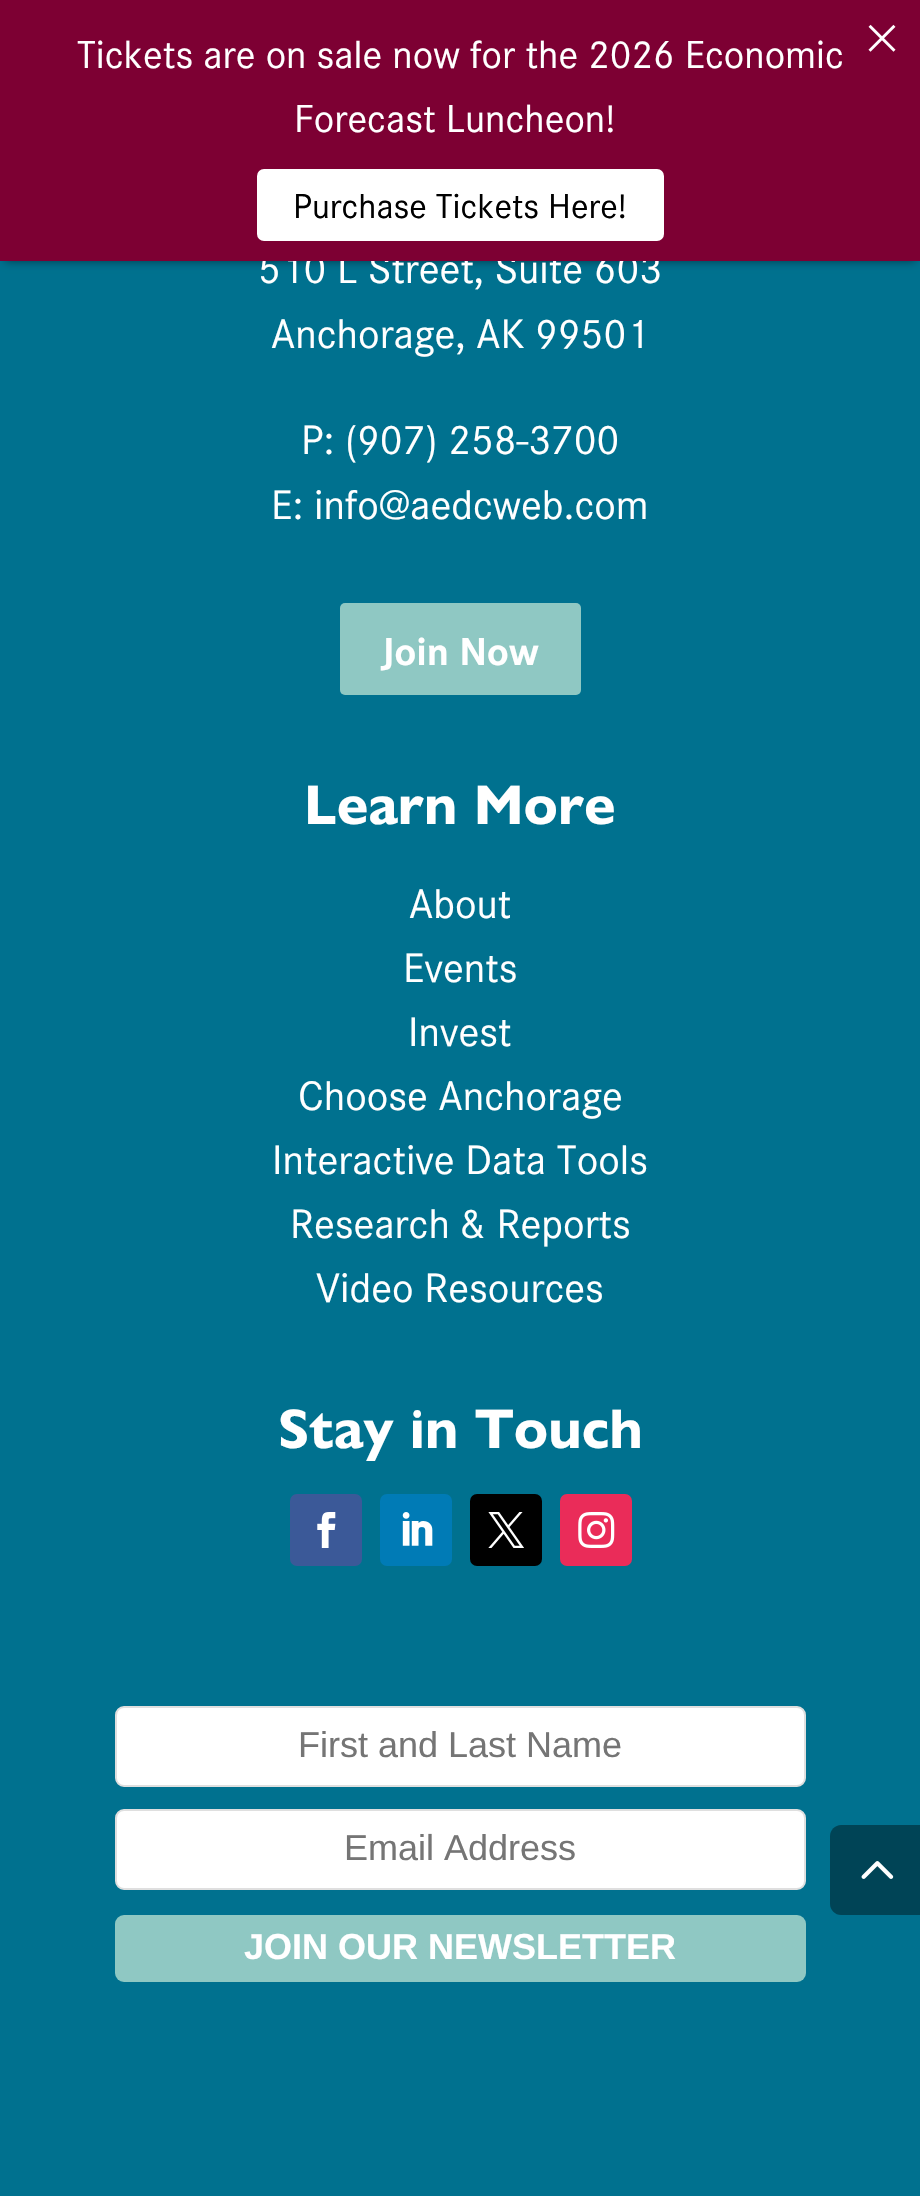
void draw(SkCanvas* canvas) {
	SkPaint fill;
	fill.setAntiAlias(true);
	auto makeFont = [&](const char* family, int weight, float size, bool italic = false) {
		SkFontStyle style(weight, SkFontStyle::kNormal_Width,
			italic ? SkFontStyle::kItalic_Slant : SkFontStyle::kUpright_Slant);
		SkFont result(fontMgr->matchFamilyStyle(family, style), size);
		result.setSubpixel(true);
		return result;
	};
	auto text = [&](const char* s, float x, float y, const SkFont& font) {
		canvas->drawString(s, x, y, font, fill);
	};
	auto box = [&](float l, float t, float r, float b) {
		canvas->drawRect(SkRect::MakeLTRB(l, t, r, b), fill);
	};
	auto roundBox = [&](float l, float t, float r, float b, float radius) {
		canvas->drawRoundRect(SkRect::MakeLTRB(l, t, r, b), radius, radius, fill);
	};
	auto picture = [&](const char* path, float l, float t, float r, float b) {
		auto image = SkImages::DeferredFromEncodedData(SkData::MakeFromFileName(path));
		canvas->drawImageRect(image, SkRect::MakeLTRB(l, t, r, b), SkSamplingOptions());
	};
	canvas->clear(0xFF00718F);
	fill.setColor(0x80000000);
	fill.setMaskFilter(SkMaskFilter::MakeBlur(kNormal_SkBlurStyle, 4.5f));
	canvas->drawRect(SkRect::MakeLTRB(5, 9, 916, 261), fill);
	fill.setMaskFilter(nullptr);
	fill.setColor(0xFF8FC8C3);
	roundBox(340, 603, 581, 695, 5);
	fill.setColor(0xFF3B5998);
	roundBox(290, 1494, 362, 1566, 7);
	picture("image1.png", 317, 1512, 336, 1548);
	fill.setColor(0xFF007BB6);
	roundBox(380, 1494, 452, 1566, 7);
	picture("image2.png", 402, 1512, 433, 1546);
	fill.setColor(0xFF000000);
	roundBox(470, 1494, 542, 1566, 7);
	picture("image3.png", 488, 1512, 524, 1548);
	fill.setColor(0xFFEA2C59);
	roundBox(560, 1494, 632, 1566, 7);
	picture("image4.png", 578, 1512, 615, 1548);
	fill.setColor(0xFFFFFFFF);
	canvas->drawRoundRect(SkRect::MakeLTRB(116, 1707, 805, 1786), 8, 8, fill);
	fill.setStyle(SkPaint::kStroke_Style);
	fill.setStrokeWidth(2);
	fill.setColor(0xFFDFDFDF);
	canvas->drawRoundRect(SkRect::MakeLTRB(116, 1707, 805, 1786), 8, 8, fill);
	fill.setStyle(SkPaint::kFill_Style);
	fill.setColor(0xFFFFFFFF);
	canvas->drawRoundRect(SkRect::MakeLTRB(116, 1810, 805, 1889), 8, 8, fill);
	fill.setStyle(SkPaint::kStroke_Style);
	fill.setColor(0xFFDFDFDF);
	canvas->drawRoundRect(SkRect::MakeLTRB(116, 1810, 805, 1889), 8, 8, fill);
	fill.setStyle(SkPaint::kFill_Style);
	fill.setColor(0xFF8FC8C3);
	roundBox(115, 1915, 806, 1982, 9);
	fill.setColor(0xFF004456);
	canvas->drawPath(SkPathBuilder().moveTo(841, 1825).lineTo(920, 1825).lineTo(920, 1915).lineTo(841, 1915).cubicTo(835, 1915, 830, 1910, 830, 1904).lineTo(830, 1836).cubicTo(830, 1830, 835, 1825, 841, 1825).close().detach(), fill);
	picture("image5.png", 861, 1861, 894, 1879);
	auto font1 = makeFont("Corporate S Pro", 400, 42.75f);
	fill.setColor(0xFFFFFFFF);
	text("510 L Street, Suite 603", 258, 283, font1);
	fill.setColor(0xFF7D0033);
	box(0, 0, 920, 261);
	picture("image0.png", 868, 24, 896, 52);
	fill.setColor(0xFFFFFFFF);
	roundBox(257, 169, 664, 241, 7);
	auto font2 = makeFont("Corporate S Pro", 400, 36);
	fill.setColor(0xFF000000);
	text("Purchase Tickets Here!", 293, 218, font2);
	auto font3 = makeFont("Corporate S Pro", 400, 40.5f);
	fill.setColor(0xFFFFFFFF);
	text("Forecast Luncheon!", 294, 132, font3);
	text("Tickets are on sale now for the 2026 Economic", 77, 68, font3);
	text("Anchorage, AK 99501", 271, 348, font1);
	text("P: (907) 258-3700", 301, 454, font1);
	text("E: info@aedcweb.com", 271, 519, font1);
	auto font4 = makeFont("Corporate S Pro", 700, 40.5f);
	text("Join Now", 381, 665, font4);
	auto font5 = makeFont("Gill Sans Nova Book", 700, 56.25f);
	text("Learn More", 304, 824, font5);
	text("About", 409, 918, font1);
	text("Events", 403, 982, font1);
	text("Invest", 408, 1046, font1);
	text("Choose Anchorage", 298, 1110, font1);
	text("Interactive Data Tools", 272, 1174, font1);
	text("Research & Reports", 290, 1238, font1);
	text("Video Resources", 316, 1302, font1);
	text("Stay in Touch", 278, 1448, font5);
	auto font6 = makeFont("Liberation Sans", 400, 36);
	fill.setColor(0xFF757575);
	text("First and Last Name", 298, 1757, font6);
	text("Email Address", 344, 1860, font6);
	auto font7 = makeFont("Liberation Sans", 700, 36);
	fill.setColor(0xFFFFFFFF);
	text("JOIN OUR NEWSLETTER", 244, 1959, font7);
}
